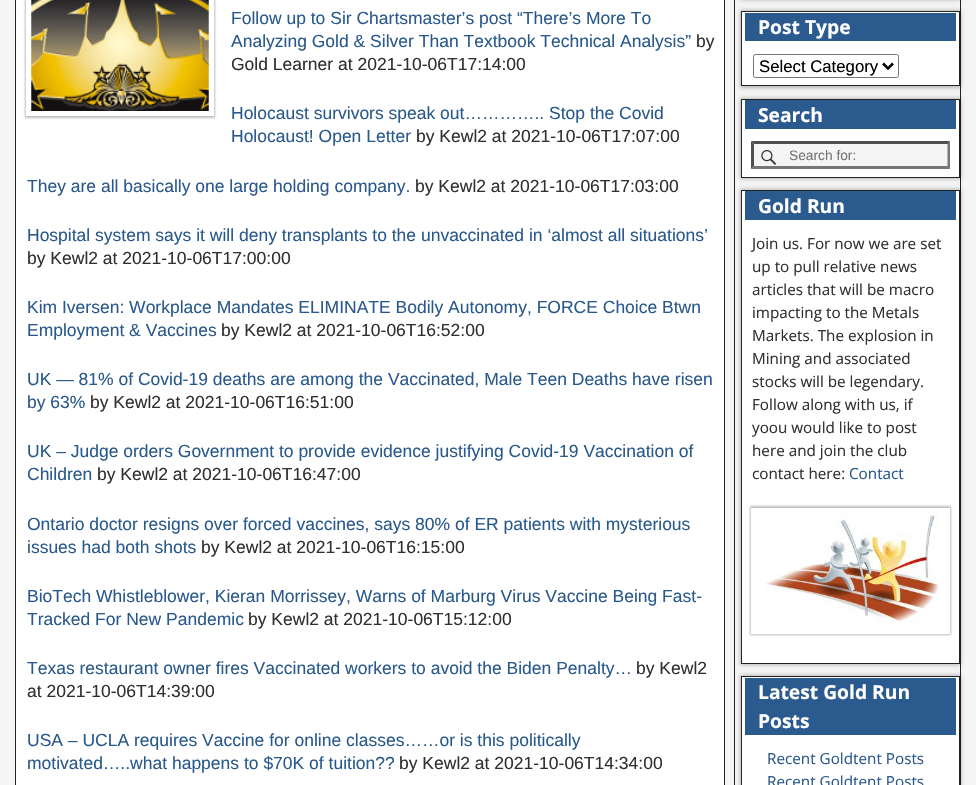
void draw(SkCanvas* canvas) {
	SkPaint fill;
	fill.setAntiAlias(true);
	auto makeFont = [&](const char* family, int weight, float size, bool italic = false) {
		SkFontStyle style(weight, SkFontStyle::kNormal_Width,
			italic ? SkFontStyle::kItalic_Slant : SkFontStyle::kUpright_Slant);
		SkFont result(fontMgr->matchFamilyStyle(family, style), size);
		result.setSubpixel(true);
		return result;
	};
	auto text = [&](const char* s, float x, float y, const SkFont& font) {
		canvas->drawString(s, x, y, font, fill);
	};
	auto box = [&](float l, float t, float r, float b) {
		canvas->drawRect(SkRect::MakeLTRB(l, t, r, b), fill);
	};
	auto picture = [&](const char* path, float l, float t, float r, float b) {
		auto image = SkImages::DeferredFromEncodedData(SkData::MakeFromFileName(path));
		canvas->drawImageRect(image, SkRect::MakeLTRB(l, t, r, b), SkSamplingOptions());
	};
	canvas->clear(0xFFF5F5F5);
	fill.setColor(0xFFFFFFFF);
	box(16, 0, 724, 785);
	fill.setColor(0xFF222222);
	canvas->drawPath(SkPathBuilder().moveTo(725, -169).lineTo(725, 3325).lineTo(724, 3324).lineTo(724, -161).close().detach(), fill);
	canvas->drawPath(SkPathBuilder().moveTo(15, 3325).lineTo(15, -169).lineTo(16, -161).lineTo(16, 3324).close().detach(), fill);
	canvas->save();
	canvas->clipPath(SkPathBuilder(SkPathFillType::kEvenOdd).moveTo(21, 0).lineTo(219, 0).lineTo(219, 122).lineTo(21, 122).close().moveTo(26, -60).lineTo(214, -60).lineTo(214, 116).lineTo(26, 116).close().detach(), true);
	fill.setColor(0x40000000);
	fill.setMaskFilter(SkMaskFilter::MakeBlur(kNormal_SkBlurStyle, 1));
	canvas->drawRect(SkRect::MakeLTRB(25, -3, 215, 118), fill);
	fill.setMaskFilter(nullptr);
	canvas->restore();
	picture("image0.png", 31, 0, 209, 111);
	fill.setStyle(SkPaint::kStroke_Style);
	fill.setStrokeWidth(1);
	fill.setColor(0xFF222222);
	canvas->drawRect(SkRect::MakeLTRB(734.5f, -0.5f, 960.5f, 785.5f), fill);
	fill.setStyle(SkPaint::kFill_Style);
	fill.setColor(0x40000000);
	fill.setMaskFilter(SkMaskFilter::MakeBlur(kNormal_SkBlurStyle, 2));
	canvas->drawRect(SkRect::MakeLTRB(740, -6, 961, 0), fill);
	fill.setMaskFilter(nullptr);
	fill.setMaskFilter(SkMaskFilter::MakeBlur(kNormal_SkBlurStyle, 2));
	canvas->drawRect(SkRect::MakeLTRB(740, 10, 961, 88), fill);
	fill.setMaskFilter(nullptr);
	fill.setColor(0xFFFFFFFF);
	canvas->drawRect(SkRect::MakeLTRB(741.5f, 11.5f, 959.5f, 85.5f), fill);
	fill.setStyle(SkPaint::kStroke_Style);
	fill.setColor(0xFF222222);
	canvas->drawRect(SkRect::MakeLTRB(741.5f, 11.5f, 959.5f, 85.5f), fill);
	fill.setStyle(SkPaint::kFill_Style);
	fill.setColor(0xFF2A5A8E);
	box(745, 13, 956, 41);
	fill.setStyle(SkPaint::kStroke_Style);
	fill.setColor(0xFF767676);
	canvas->drawRoundRect(SkRect::MakeLTRB(753.5f, 54.5f, 898.5f, 77.5f), 2, 2, fill);
	fill.setStrokeWidth(2.5f);
	fill.setColor(0xFF000000);
	canvas->drawPath(SkPathBuilder().moveTo(883, 63.5f).lineTo(888, 68.5f).lineTo(893, 63.5f).detach(), fill);
	fill.setStyle(SkPaint::kFill_Style);
	fill.setColor(0x40000000);
	fill.setMaskFilter(SkMaskFilter::MakeBlur(kNormal_SkBlurStyle, 2));
	canvas->drawRect(SkRect::MakeLTRB(740, 98, 961, 179), fill);
	fill.setMaskFilter(nullptr);
	fill.setColor(0xFFFFFFFF);
	canvas->drawRect(SkRect::MakeLTRB(741.5f, 99.5f, 959.5f, 177.5f), fill);
	fill.setStyle(SkPaint::kStroke_Style);
	fill.setStrokeWidth(1);
	fill.setColor(0xFF222222);
	canvas->drawRect(SkRect::MakeLTRB(741.5f, 99.5f, 959.5f, 177.5f), fill);
	fill.setStyle(SkPaint::kFill_Style);
	fill.setColor(0xFF2A5A8E);
	box(745, 100, 956, 129);
	fill.setColor(0xFFF5F5F5);
	box(751, 141, 950, 169);
	picture("image1.png", 761, 150, 777, 165);
	fill.setColor(0xFF4F4F4F);
	canvas->drawPath(SkPathBuilder().moveTo(751, 141).lineTo(950, 141).lineTo(948, 144).lineTo(754, 144).close().detach(), fill);
	fill.setColor(0xFF767676);
	canvas->drawPath(SkPathBuilder().moveTo(950, 141).lineTo(950, 169).lineTo(947.5f, 166).lineTo(947.5f, 144).close().detach(), fill);
	canvas->drawPath(SkPathBuilder().moveTo(950, 169).lineTo(751, 169).lineTo(754, 166).lineTo(948, 166).close().detach(), fill);
	fill.setColor(0xFF4F4F4F);
	canvas->drawPath(SkPathBuilder().moveTo(751, 169).lineTo(751, 141).lineTo(754, 144).lineTo(754, 166).close().detach(), fill);
	fill.setColor(0x40000000);
	fill.setMaskFilter(SkMaskFilter::MakeBlur(kNormal_SkBlurStyle, 2));
	canvas->drawRect(SkRect::MakeLTRB(740, 189, 961, 665), fill);
	fill.setMaskFilter(nullptr);
	fill.setColor(0xFFFFFFFF);
	canvas->drawRect(SkRect::MakeLTRB(741.5f, 190.5f, 959.5f, 663.5f), fill);
	fill.setStyle(SkPaint::kStroke_Style);
	fill.setColor(0xFF222222);
	canvas->drawRect(SkRect::MakeLTRB(741.5f, 190.5f, 959.5f, 663.5f), fill);
	fill.setStyle(SkPaint::kFill_Style);
	fill.setColor(0xFF2A5A8E);
	box(745, 191, 956, 220);
	canvas->save();
	canvas->clipPath(SkPathBuilder(SkPathFillType::kEvenOdd).moveTo(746, 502).lineTo(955, 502).lineTo(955, 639).lineTo(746, 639).close().moveTo(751, 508).lineTo(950, 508).lineTo(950, 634).lineTo(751, 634).close().detach(), true);
	fill.setColor(0x40000000);
	fill.setMaskFilter(SkMaskFilter::MakeBlur(kNormal_SkBlurStyle, 1));
	canvas->drawRect(SkRect::MakeLTRB(750, 506, 951, 635), fill);
	fill.setMaskFilter(nullptr);
	canvas->restore();
	picture("image2.png", 765, 512, 939, 623);
	fill.setMaskFilter(SkMaskFilter::MakeBlur(kNormal_SkBlurStyle, 2));
	canvas->drawRect(SkRect::MakeLTRB(740, 675, 961, 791), fill);
	fill.setMaskFilter(nullptr);
	fill.setColor(0xFFFFFFFF);
	canvas->drawRect(SkRect::MakeLTRB(741.5f, 676.5f, 959.5f, 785.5f), fill);
	fill.setStyle(SkPaint::kStroke_Style);
	fill.setColor(0xFF222222);
	canvas->drawRect(SkRect::MakeLTRB(741.5f, 676.5f, 959.5f, 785.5f), fill);
	fill.setStyle(SkPaint::kFill_Style);
	fill.setColor(0xFF2A5A8E);
	box(745, 678, 956, 735);
	auto font1 = makeFont("Liberation Sans", 400, 17.5f);
	fill.setColor(0xFF29598C);
	text("Follow up to Sir Chartsmaster’s post “There’s More To", 231, 24, font1);
	text("Analyzing Gold & Silver Than Textbook Technical Analysis”", 231, 47, font1);
	fill.setColor(0xFF303030);
	text("by", 696, 47, font1);
	text("Gold Learner at 2021-10-06T17:14:00", 231, 70, font1);
	fill.setColor(0xFF29598C);
	text("Holocaust survivors speak out………….. Stop the Covid", 231, 119, font1);
	text("Holocaust! Open Letter", 231, 142, font1);
	fill.setColor(0xFF303030);
	text("by Kewl2 at 2021-10-06T17:07:00", 416, 142, font1);
	fill.setColor(0xFF29598C);
	text("They are all basically one large holding company.", 27, 192, font1);
	fill.setColor(0xFF303030);
	text("by Kewl2 at 2021-10-06T17:03:00", 415, 192, font1);
	fill.setColor(0xFF29598C);
	text("Hospital system says it will deny transplants to the unvaccinated in ‘almost all situations’", 27, 241, font1);
	fill.setColor(0xFF303030);
	text("by Kewl2 at 2021-10-06T17:00:00", 27, 264, font1);
	fill.setColor(0xFF29598C);
	text("Kim Iversen: Workplace Mandates ELIMINATE Bodily Autonomy, FORCE Choice Btwn", 27, 313, font1);
	text("Employment & Vaccines", 27, 336, font1);
	fill.setColor(0xFF303030);
	text("by Kewl2 at 2021-10-06T16:52:00", 221, 336, font1);
	fill.setColor(0xFF29598C);
	text("UK — 81% of Covid-19 deaths are among the Vaccinated, Male Teen Deaths have risen", 27, 385, font1);
	text("by 63%", 27, 408, font1);
	fill.setColor(0xFF303030);
	text("by Kewl2 at 2021-10-06T16:51:00", 90, 408, font1);
	fill.setColor(0xFF29598C);
	text("UK – Judge orders Government to provide evidence justifying Covid-19 Vaccination of", 27, 457, font1);
	text("Children", 27, 480, font1);
	fill.setColor(0xFF303030);
	text("by Kewl2 at 2021-10-06T16:47:00", 97, 480, font1);
	fill.setColor(0xFF29598C);
	text("Ontario doctor resigns over forced vaccines, says 80% of ER patients with mysterious", 27, 530, font1);
	text("issues had both shots", 27, 553, font1);
	fill.setColor(0xFF303030);
	text("by Kewl2 at 2021-10-06T16:15:00", 201, 553, font1);
	fill.setColor(0xFF29598C);
	text("BioTech Whistleblower, Kieran Morrissey, Warns of Marburg Virus Vaccine Being Fast-", 27, 602, font1);
	text("Tracked For New Pandemic", 27, 625, font1);
	fill.setColor(0xFF303030);
	text("by Kewl2 at 2021-10-06T15:12:00", 248, 625, font1);
	fill.setColor(0xFF29598C);
	text("Texas restaurant owner fires Vaccinated workers to avoid the Biden Penalty…", 27, 674, font1);
	fill.setColor(0xFF303030);
	text("by Kewl2", 636, 674, font1);
	text("at 2021-10-06T14:39:00", 27, 697, font1);
	fill.setColor(0xFF29598C);
	text("USA – UCLA requires Vaccine for online classes……or is this politically", 27, 746, font1);
	text("motivated…..what happens to $70K of tuition?\077", 27, 769, font1);
	fill.setColor(0xFF303030);
	text("by Kewl2 at 2021-10-06T14:34:00", 399, 769, font1);
	auto font2 = makeFont("Open Sans", 700, 19.25f);
	fill.setColor(0xFFFFFFFF);
	text("Post Type", 758, 34, font2);
	auto font3 = makeFont("Liberation Sans", 400, 16.75f);
	fill.setColor(0xFF000000);
	text("Select Category", 759, 72, font3);
	fill.setColor(0xFFFFFFFF);
	text("Search", 758, 122, font2);
	auto font4 = makeFont("Liberation Sans", 400, 13.75f);
	fill.setColor(0xFF757575);
	text("Search for:", 789, 160, font4);
	fill.setColor(0xFFFFFFFF);
	text("Gold Run", 758, 213, font2);
	auto font5 = makeFont("Open Sans", 400, 15.25f);
	fill.setColor(0xFF303030);
	text("Join us. For now we are set", 752, 249, font5);
	text("up to pull relative news", 752, 272, font5);
	text("articles that will be macro", 752, 295, font5);
	text("impacting to the Metals", 752, 318, font5);
	text("Markets. The explosion in", 752, 341, font5);
	text("Mining and associated", 752, 364, font5);
	text("stocks will be legendary.", 752, 387, font5);
	text("Follow along with us, if", 752, 410, font5);
	text("yoou would like to post", 752, 433, font5);
	text("here and join the club", 752, 456, font5);
	text("contact here:", 752, 479, font5);
	fill.setColor(0xFF29598C);
	text("Contact", 849, 479, font5);
	fill.setColor(0xFFFFFFFF);
	text("Latest Gold Run", 758, 699, font2);
	text("Posts", 758, 728, font2);
	fill.setColor(0xFF29598C);
	text("Recent Goldtent Posts", 767, 764, font5);
	text("Recent Goldtent Posts", 767, 787, font5);
}
